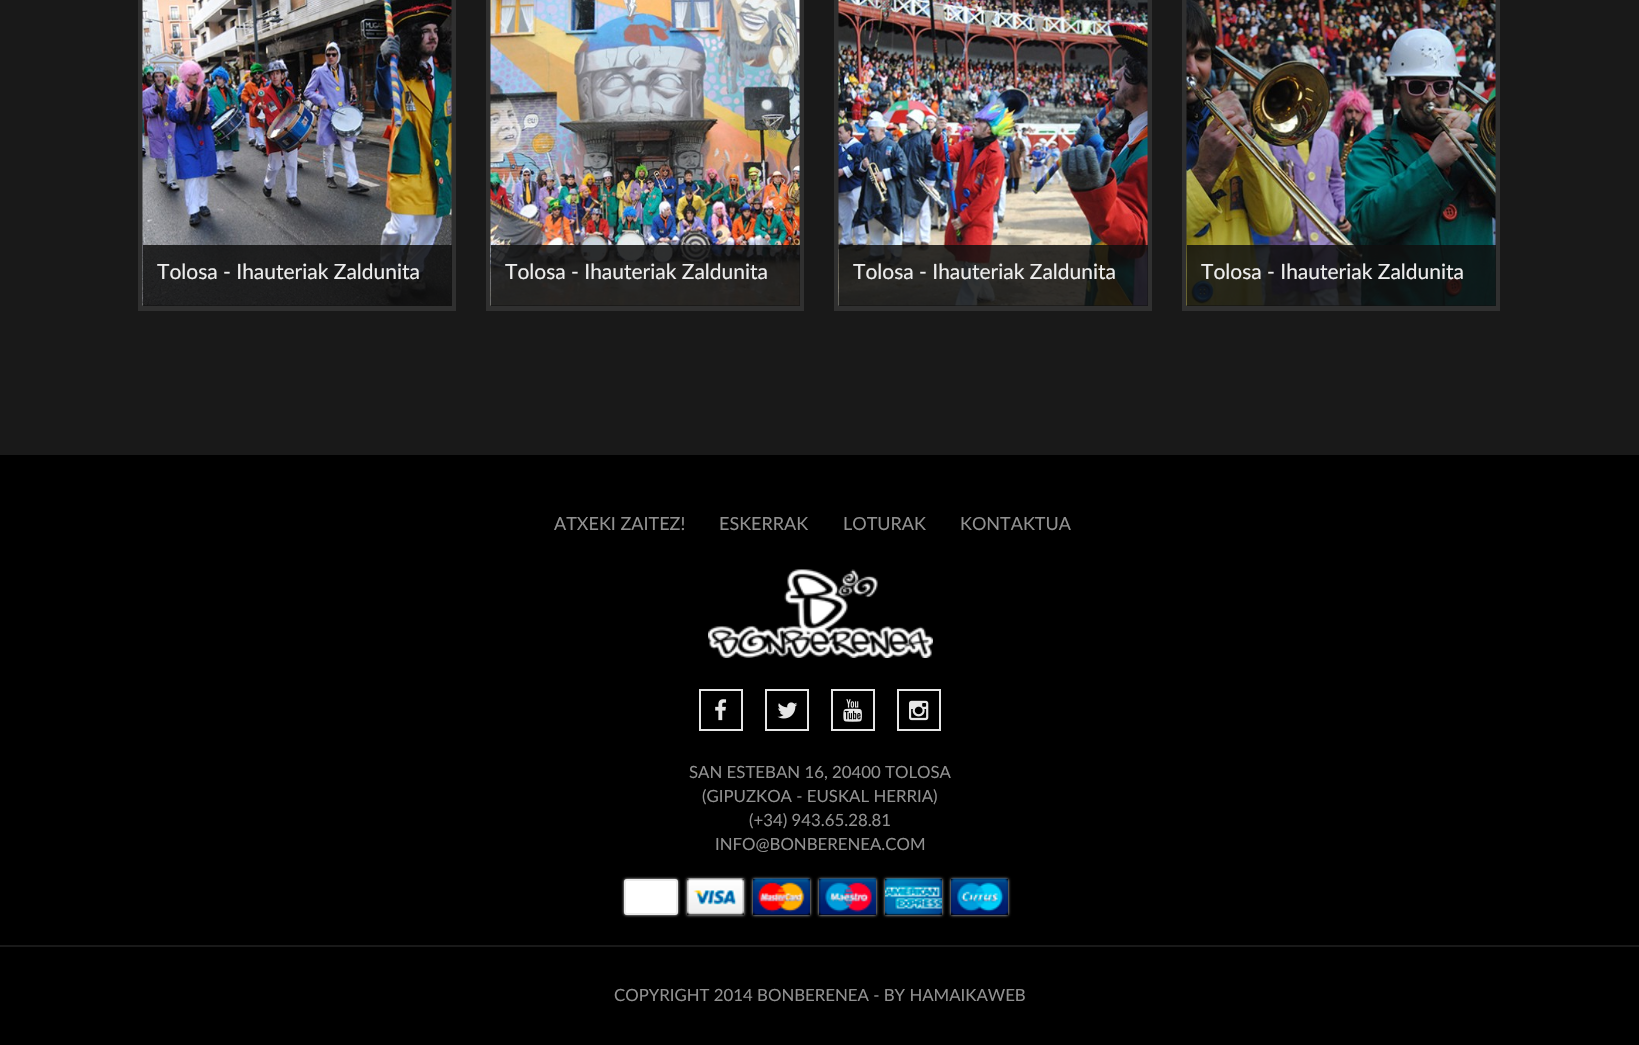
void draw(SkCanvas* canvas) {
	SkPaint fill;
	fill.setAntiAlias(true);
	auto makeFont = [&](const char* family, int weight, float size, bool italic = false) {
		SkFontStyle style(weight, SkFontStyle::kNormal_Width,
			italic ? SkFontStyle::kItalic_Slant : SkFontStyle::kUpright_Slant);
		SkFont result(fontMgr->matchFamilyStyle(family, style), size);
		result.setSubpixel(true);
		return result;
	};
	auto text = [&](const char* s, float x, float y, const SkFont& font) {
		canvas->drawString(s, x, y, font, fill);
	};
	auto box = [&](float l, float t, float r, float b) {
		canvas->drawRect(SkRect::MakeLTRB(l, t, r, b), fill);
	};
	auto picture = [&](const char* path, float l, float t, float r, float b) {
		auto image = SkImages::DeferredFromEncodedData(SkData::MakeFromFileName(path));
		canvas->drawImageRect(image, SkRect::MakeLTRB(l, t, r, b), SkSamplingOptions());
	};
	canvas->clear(0xFF000000);
	fill.setColor(0xFF191919);
	box(0, 0, 1639, 455);
	fill.setStyle(SkPaint::kStroke_Style);
	fill.setStrokeWidth(5);
	fill.setColor(0xFF303030);
	canvas->drawRect(SkRect::MakeLTRB(140.5f, -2.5f, 453.5f, 308.5f), fill);
	picture("image0.png", 142, 0, 452, 306);
	fill.setStyle(SkPaint::kFill_Style);
	fill.setColor(0xD90E0E0E);
	box(143, 245, 452, 306);
	fill.setStyle(SkPaint::kStroke_Style);
	fill.setColor(0xFF303030);
	canvas->drawRect(SkRect::MakeLTRB(488.5f, -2.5f, 801.5f, 308.5f), fill);
	picture("image1.png", 490, 0, 800, 306);
	fill.setStyle(SkPaint::kFill_Style);
	fill.setColor(0xD90E0E0E);
	box(491, 245, 800, 306);
	fill.setStyle(SkPaint::kStroke_Style);
	fill.setColor(0xFF303030);
	canvas->drawRect(SkRect::MakeLTRB(836.5f, -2.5f, 1149.5f, 308.5f), fill);
	picture("image2.png", 838, 0, 1148, 306);
	fill.setStyle(SkPaint::kFill_Style);
	fill.setColor(0xD90E0E0E);
	box(839, 245, 1148, 306);
	fill.setStyle(SkPaint::kStroke_Style);
	fill.setColor(0xFF303030);
	canvas->drawRect(SkRect::MakeLTRB(1184.5f, -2.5f, 1497.5f, 308.5f), fill);
	picture("image3.png", 1186, 0, 1496, 306);
	fill.setStyle(SkPaint::kFill_Style);
	fill.setColor(0xD90E0E0E);
	box(1187, 245, 1496, 306);
	fill.setColor(0xFF191919);
	box(0, 945, 1639, 947);
	picture("image4.png", 708, 569, 933, 658);
	fill.setStyle(SkPaint::kStroke_Style);
	fill.setStrokeWidth(2);
	fill.setColor(0xFFE6E6E6);
	canvas->drawRect(SkRect::MakeLTRB(700, 690, 742, 730), fill);
	picture("image5.png", 715, 699, 727, 721);
	canvas->drawRect(SkRect::MakeLTRB(766, 690, 808, 730), fill);
	picture("image6.png", 777, 702, 798, 719);
	canvas->drawRect(SkRect::MakeLTRB(832, 690, 874, 730), fill);
	picture("image7.png", 843, 699, 862, 722);
	canvas->drawRect(SkRect::MakeLTRB(898, 690, 940, 730), fill);
	picture("image8.png", 909, 700, 929, 721);
	fill.setStyle(SkPaint::kFill_Style);
	fill.setColor(0xFFDCDCDC);
	fill.setMaskFilter(SkMaskFilter::MakeBlur(kNormal_SkBlurStyle, 1.5f));
	canvas->drawRoundRect(SkRect::MakeLTRB(624, 879, 678, 915), 3, 3, fill);
	fill.setMaskFilter(nullptr);
	fill.setColor(0xFFFFFFFF);
	canvas->drawRoundRect(SkRect::MakeLTRB(625, 880, 677, 914), 2, 2, fill);
	fill.setStyle(SkPaint::kStroke_Style);
	fill.setColor(0xFFEBEBEB);
	canvas->drawRoundRect(SkRect::MakeLTRB(625, 880, 677, 914), 2, 2, fill);
	canvas->save();
	canvas->clipPath(SkPathBuilder(SkPathFillType::kEvenOdd).moveTo(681, 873).lineTo(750, 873).lineTo(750, 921).lineTo(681, 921).close().moveTo(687, 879).lineTo(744, 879).lineTo(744, 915).lineTo(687, 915).close().detach(), true);
	fill.setStyle(SkPaint::kFill_Style);
	fill.setColor(0xFFDCDCDC);
	fill.setMaskFilter(SkMaskFilter::MakeBlur(kNormal_SkBlurStyle, 1.5f));
	canvas->drawRect(SkRect::MakeLTRB(687, 879, 744, 915), fill);
	fill.setMaskFilter(nullptr);
	canvas->restore();
	picture("image9.png", 687, 878, 744, 915);
	canvas->save();
	canvas->clipPath(SkPathBuilder(SkPathFillType::kEvenOdd).moveTo(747, 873).lineTo(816, 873).lineTo(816, 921).lineTo(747, 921).close().moveTo(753, 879).lineTo(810, 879).lineTo(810, 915).lineTo(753, 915).close().detach(), true);
	fill.setMaskFilter(SkMaskFilter::MakeBlur(kNormal_SkBlurStyle, 1.5f));
	canvas->drawRect(SkRect::MakeLTRB(753, 879, 810, 915), fill);
	fill.setMaskFilter(nullptr);
	canvas->restore();
	picture("image10.png", 753, 878, 810, 915);
	canvas->save();
	canvas->clipPath(SkPathBuilder(SkPathFillType::kEvenOdd).moveTo(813, 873).lineTo(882, 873).lineTo(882, 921).lineTo(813, 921).close().moveTo(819, 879).lineTo(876, 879).lineTo(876, 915).lineTo(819, 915).close().detach(), true);
	fill.setMaskFilter(SkMaskFilter::MakeBlur(kNormal_SkBlurStyle, 1.5f));
	canvas->drawRect(SkRect::MakeLTRB(819, 879, 876, 915), fill);
	fill.setMaskFilter(nullptr);
	canvas->restore();
	picture("image11.png", 819, 878, 876, 915);
	canvas->save();
	canvas->clipPath(SkPathBuilder(SkPathFillType::kEvenOdd).moveTo(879, 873).lineTo(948, 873).lineTo(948, 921).lineTo(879, 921).close().moveTo(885, 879).lineTo(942, 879).lineTo(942, 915).lineTo(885, 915).close().detach(), true);
	fill.setMaskFilter(SkMaskFilter::MakeBlur(kNormal_SkBlurStyle, 1.5f));
	canvas->drawRect(SkRect::MakeLTRB(885, 879, 942, 915), fill);
	fill.setMaskFilter(nullptr);
	canvas->restore();
	picture("image12.png", 885, 878, 942, 915);
	canvas->save();
	canvas->clipPath(SkPathBuilder(SkPathFillType::kEvenOdd).moveTo(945, 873).lineTo(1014, 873).lineTo(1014, 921).lineTo(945, 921).close().moveTo(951, 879).lineTo(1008, 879).lineTo(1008, 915).lineTo(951, 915).close().detach(), true);
	fill.setMaskFilter(SkMaskFilter::MakeBlur(kNormal_SkBlurStyle, 1.5f));
	canvas->drawRect(SkRect::MakeLTRB(951, 879, 1008, 915), fill);
	fill.setMaskFilter(nullptr);
	canvas->restore();
	picture("image13.png", 951, 878, 1008, 915);
	auto font1 = makeFont("Lato", 400, 21);
	fill.setColor(0xFFEDEDED);
	text("Tolosa - Ihauteriak Zaldunita", 157, 279, font1);
	text("Tolosa - Ihauteriak Zaldunita", 505, 279, font1);
	text("Tolosa - Ihauteriak Zaldunita", 853, 279, font1);
	text("Tolosa - Ihauteriak Zaldunita", 1201, 279, font1);
	auto font2 = makeFont("Lato", 400, 18);
	fill.setColor(0xFF909090);
	text("ATXEKI ZAITEZ!", 554, 530, font2);
	text("ESKERRAK", 719, 530, font2);
	text("LOTURAK", 843, 530, font2);
	text("KONTAKTUA", 960, 530, font2);
	auto font3 = makeFont("Lato", 400, 16.8f);
	text("SAN ESTEBAN 16, 20400 TOLOSA", 689, 778, font3);
	text("(GIPUZKOA - EUSKAL HERRIA)", 702, 802, font3);
	text("(+34) 943.65.28.81", 749, 826, font3);
	text("INFO@BONBERENEA.COM", 715, 850, font3);
	text("COPYRIGHT 2014 BONBERENEA - BY HAMAIKAWEB", 614, 1001, font3);
}
